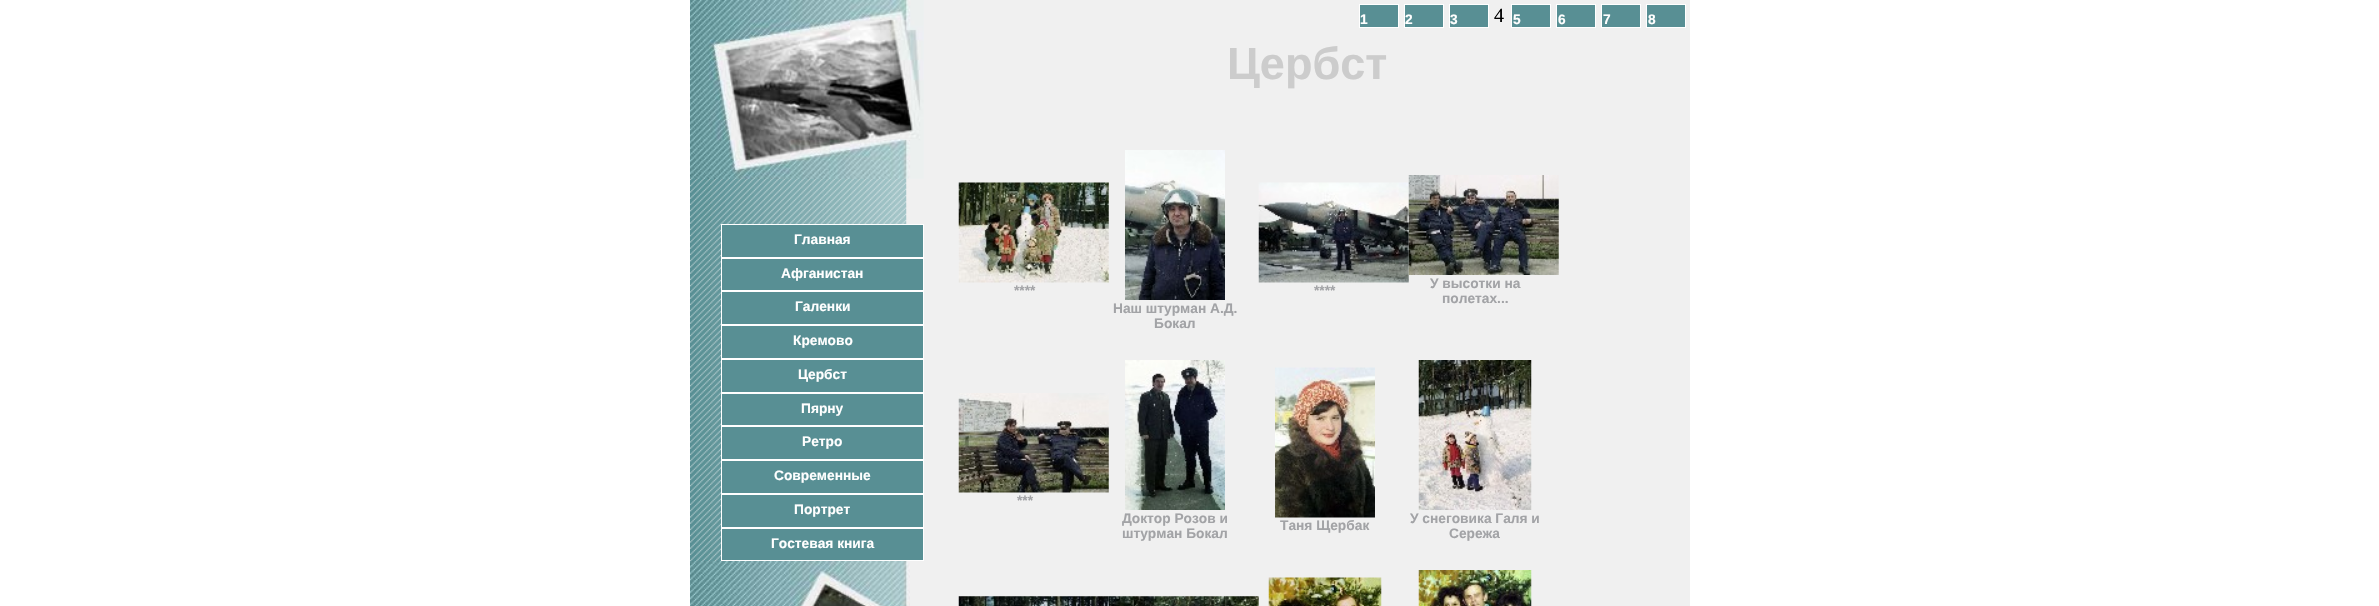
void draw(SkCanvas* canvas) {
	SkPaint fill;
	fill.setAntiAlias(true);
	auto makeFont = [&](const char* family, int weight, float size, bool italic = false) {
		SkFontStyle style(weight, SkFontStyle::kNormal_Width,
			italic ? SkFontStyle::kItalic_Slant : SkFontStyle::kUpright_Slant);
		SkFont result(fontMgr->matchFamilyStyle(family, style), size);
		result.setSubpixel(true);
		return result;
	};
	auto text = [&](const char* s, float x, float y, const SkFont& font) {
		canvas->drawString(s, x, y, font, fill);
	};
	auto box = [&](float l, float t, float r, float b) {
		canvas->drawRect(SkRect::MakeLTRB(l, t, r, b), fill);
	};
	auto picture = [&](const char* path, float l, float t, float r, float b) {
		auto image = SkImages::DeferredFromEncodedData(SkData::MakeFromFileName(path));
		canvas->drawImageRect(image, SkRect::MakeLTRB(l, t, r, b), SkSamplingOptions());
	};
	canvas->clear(0xFFFFFFFF);
	fill.setColor(0xFFF0F0F0);
	box(906, 0, 1690, 606);
	picture("image0.png", 690, 178, 907, 562);
	picture("image1.png", 690, 0, 924, 179);
	fill.setColor(0xFF588F94);
	canvas->drawRect(SkRect::MakeLTRB(721.5f, 224.5f, 923.5f, 257.5f), fill);
	fill.setStyle(SkPaint::kStroke_Style);
	fill.setStrokeWidth(1);
	fill.setColor(0xFFFFFFFF);
	canvas->drawRect(SkRect::MakeLTRB(721.5f, 224.5f, 923.5f, 257.5f), fill);
	fill.setStyle(SkPaint::kFill_Style);
	fill.setColor(0xFF588F94);
	canvas->drawRect(SkRect::MakeLTRB(721.5f, 258.5f, 923.5f, 290.5f), fill);
	fill.setStyle(SkPaint::kStroke_Style);
	fill.setColor(0xFFFFFFFF);
	canvas->drawRect(SkRect::MakeLTRB(721.5f, 258.5f, 923.5f, 290.5f), fill);
	fill.setStyle(SkPaint::kFill_Style);
	fill.setColor(0xFF588F94);
	canvas->drawRect(SkRect::MakeLTRB(721.5f, 291.5f, 923.5f, 324.5f), fill);
	fill.setStyle(SkPaint::kStroke_Style);
	fill.setColor(0xFFFFFFFF);
	canvas->drawRect(SkRect::MakeLTRB(721.5f, 291.5f, 923.5f, 324.5f), fill);
	fill.setStyle(SkPaint::kFill_Style);
	fill.setColor(0xFF588F94);
	canvas->drawRect(SkRect::MakeLTRB(721.5f, 325.5f, 923.5f, 358.5f), fill);
	fill.setStyle(SkPaint::kStroke_Style);
	fill.setColor(0xFFFFFFFF);
	canvas->drawRect(SkRect::MakeLTRB(721.5f, 325.5f, 923.5f, 358.5f), fill);
	fill.setStyle(SkPaint::kFill_Style);
	fill.setColor(0xFF588F94);
	canvas->drawRect(SkRect::MakeLTRB(721.5f, 359.5f, 923.5f, 392.5f), fill);
	fill.setStyle(SkPaint::kStroke_Style);
	fill.setColor(0xFFFFFFFF);
	canvas->drawRect(SkRect::MakeLTRB(721.5f, 359.5f, 923.5f, 392.5f), fill);
	fill.setStyle(SkPaint::kFill_Style);
	fill.setColor(0xFF588F94);
	canvas->drawRect(SkRect::MakeLTRB(721.5f, 393.5f, 923.5f, 425.5f), fill);
	fill.setStyle(SkPaint::kStroke_Style);
	fill.setColor(0xFFFFFFFF);
	canvas->drawRect(SkRect::MakeLTRB(721.5f, 393.5f, 923.5f, 425.5f), fill);
	fill.setStyle(SkPaint::kFill_Style);
	fill.setColor(0xFF588F94);
	canvas->drawRect(SkRect::MakeLTRB(721.5f, 426.5f, 923.5f, 459.5f), fill);
	fill.setStyle(SkPaint::kStroke_Style);
	fill.setColor(0xFFFFFFFF);
	canvas->drawRect(SkRect::MakeLTRB(721.5f, 426.5f, 923.5f, 459.5f), fill);
	fill.setStyle(SkPaint::kFill_Style);
	fill.setColor(0xFF588F94);
	canvas->drawRect(SkRect::MakeLTRB(721.5f, 460.5f, 923.5f, 493.5f), fill);
	fill.setStyle(SkPaint::kStroke_Style);
	fill.setColor(0xFFFFFFFF);
	canvas->drawRect(SkRect::MakeLTRB(721.5f, 460.5f, 923.5f, 493.5f), fill);
	fill.setStyle(SkPaint::kFill_Style);
	fill.setColor(0xFF588F94);
	canvas->drawRect(SkRect::MakeLTRB(721.5f, 494.5f, 923.5f, 527.5f), fill);
	fill.setStyle(SkPaint::kStroke_Style);
	fill.setColor(0xFFFFFFFF);
	canvas->drawRect(SkRect::MakeLTRB(721.5f, 494.5f, 923.5f, 527.5f), fill);
	fill.setStyle(SkPaint::kFill_Style);
	fill.setColor(0xFF588F94);
	canvas->drawRect(SkRect::MakeLTRB(721.5f, 528.5f, 923.5f, 560.5f), fill);
	fill.setStyle(SkPaint::kStroke_Style);
	fill.setColor(0xFFFFFFFF);
	canvas->drawRect(SkRect::MakeLTRB(721.5f, 528.5f, 923.5f, 560.5f), fill);
	picture("image2.png", 690, 561, 910, 606);
	fill.setStyle(SkPaint::kFill_Style);
	fill.setColor(0xFF588F94);
	canvas->drawRect(SkRect::MakeLTRB(1359.5f, 4.5f, 1398.5f, 27.5f), fill);
	fill.setStyle(SkPaint::kStroke_Style);
	fill.setColor(0xFFFFFFFF);
	canvas->drawRect(SkRect::MakeLTRB(1359.5f, 4.5f, 1398.5f, 27.5f), fill);
	fill.setStyle(SkPaint::kFill_Style);
	fill.setColor(0xFF588F94);
	canvas->drawRect(SkRect::MakeLTRB(1404.5f, 4.5f, 1443.5f, 27.5f), fill);
	fill.setStyle(SkPaint::kStroke_Style);
	fill.setColor(0xFFFFFFFF);
	canvas->drawRect(SkRect::MakeLTRB(1404.5f, 4.5f, 1443.5f, 27.5f), fill);
	fill.setStyle(SkPaint::kFill_Style);
	fill.setColor(0xFF588F94);
	canvas->drawRect(SkRect::MakeLTRB(1449.5f, 4.5f, 1488.5f, 27.5f), fill);
	fill.setStyle(SkPaint::kStroke_Style);
	fill.setColor(0xFFFFFFFF);
	canvas->drawRect(SkRect::MakeLTRB(1449.5f, 4.5f, 1488.5f, 27.5f), fill);
	fill.setStyle(SkPaint::kFill_Style);
	fill.setColor(0xFF588F94);
	canvas->drawRect(SkRect::MakeLTRB(1511.5f, 4.5f, 1550.5f, 27.5f), fill);
	fill.setStyle(SkPaint::kStroke_Style);
	fill.setColor(0xFFFFFFFF);
	canvas->drawRect(SkRect::MakeLTRB(1511.5f, 4.5f, 1550.5f, 27.5f), fill);
	fill.setStyle(SkPaint::kFill_Style);
	fill.setColor(0xFF588F94);
	canvas->drawRect(SkRect::MakeLTRB(1556.5f, 4.5f, 1595.5f, 27.5f), fill);
	fill.setStyle(SkPaint::kStroke_Style);
	fill.setColor(0xFFFFFFFF);
	canvas->drawRect(SkRect::MakeLTRB(1556.5f, 4.5f, 1595.5f, 27.5f), fill);
	fill.setStyle(SkPaint::kFill_Style);
	fill.setColor(0xFF588F94);
	canvas->drawRect(SkRect::MakeLTRB(1601.5f, 4.5f, 1640.5f, 27.5f), fill);
	fill.setStyle(SkPaint::kStroke_Style);
	fill.setColor(0xFFFFFFFF);
	canvas->drawRect(SkRect::MakeLTRB(1601.5f, 4.5f, 1640.5f, 27.5f), fill);
	fill.setStyle(SkPaint::kFill_Style);
	fill.setColor(0xFF588F94);
	canvas->drawRect(SkRect::MakeLTRB(1646.5f, 4.5f, 1685.5f, 27.5f), fill);
	fill.setStyle(SkPaint::kStroke_Style);
	fill.setColor(0xFFFFFFFF);
	canvas->drawRect(SkRect::MakeLTRB(1646.5f, 4.5f, 1685.5f, 27.5f), fill);
	picture("image3.png", 958, 182, 1109, 283);
	picture("image4.png", 1258, 182, 1409, 283);
	picture("image5.png", 1408, 175, 1559, 275);
	picture("image6.png", 1125, 150, 1225, 300);
	picture("image7.png", 958, 393, 1109, 493);
	picture("image8.png", 1125, 360, 1225, 510);
	picture("image9.png", 1275, 367, 1375, 518);
	picture("image10.png", 1418, 360, 1532, 510);
	picture("image11.png", 958, 596, 1109, 606);
	picture("image12.png", 1108, 596, 1259, 606);
	picture("image13.png", 1268, 577, 1382, 606);
	picture("image14.png", 1418, 570, 1532, 606);
	auto font1 = makeFont("Liberation Sans", 700, 13.75f);
	fill.setStyle(SkPaint::kFill_Style);
	text("Главная", 794, 244, font1);
	text("Афганистан", 781, 278, font1);
	text("Галенки", 795, 311, font1);
	text("Кремово", 793, 345, font1);
	text("Цербст", 798, 379, font1);
	text("Пярну", 801, 413, font1);
	text("Ретро", 802, 446, font1);
	text("Современные", 774, 480, font1);
	text("Портрет", 794, 514, font1);
	text("Гостевая книга", 771, 548, font1);
	text("1", 1360, 24, font1);
	text("2", 1405, 24, font1);
	text("3", 1450, 24, font1);
	auto font2 = makeFont("Liberation Serif", 400, 20);
	fill.setColor(0xFF000000);
	text("4", 1494, 22, font2);
	fill.setColor(0xFFFFFFFF);
	text("5", 1513, 24, font1);
	text("6", 1558, 24, font1);
	text("7", 1603, 24, font1);
	text("8", 1648, 24, font1);
	auto font3 = makeFont("Liberation Sans", 700, 45);
	fill.setColor(0xFFCCCCCC);
	text("Цербст", 1227, 79, font3);
	fill.setColor(0xFFA2A3A6);
	text("****", 1014, 295, font1);
	text("****", 1314, 295, font1);
	text("У высотки на", 1430, 288, font1);
	text("полетах...", 1442, 303, font1);
	text("Наш штурман А.Д.", 1113, 313, font1);
	text("Бокал", 1154, 328, font1);
	text("***", 1017, 505, font1);
	text("Доктор Розов и", 1122, 523, font1);
	text("штурман Бокал", 1122, 538, font1);
	text("Таня Щербак", 1280, 530, font1);
	text("У снеговика Галя и", 1410, 523, font1);
	text("Сережа", 1449, 538, font1);
}
